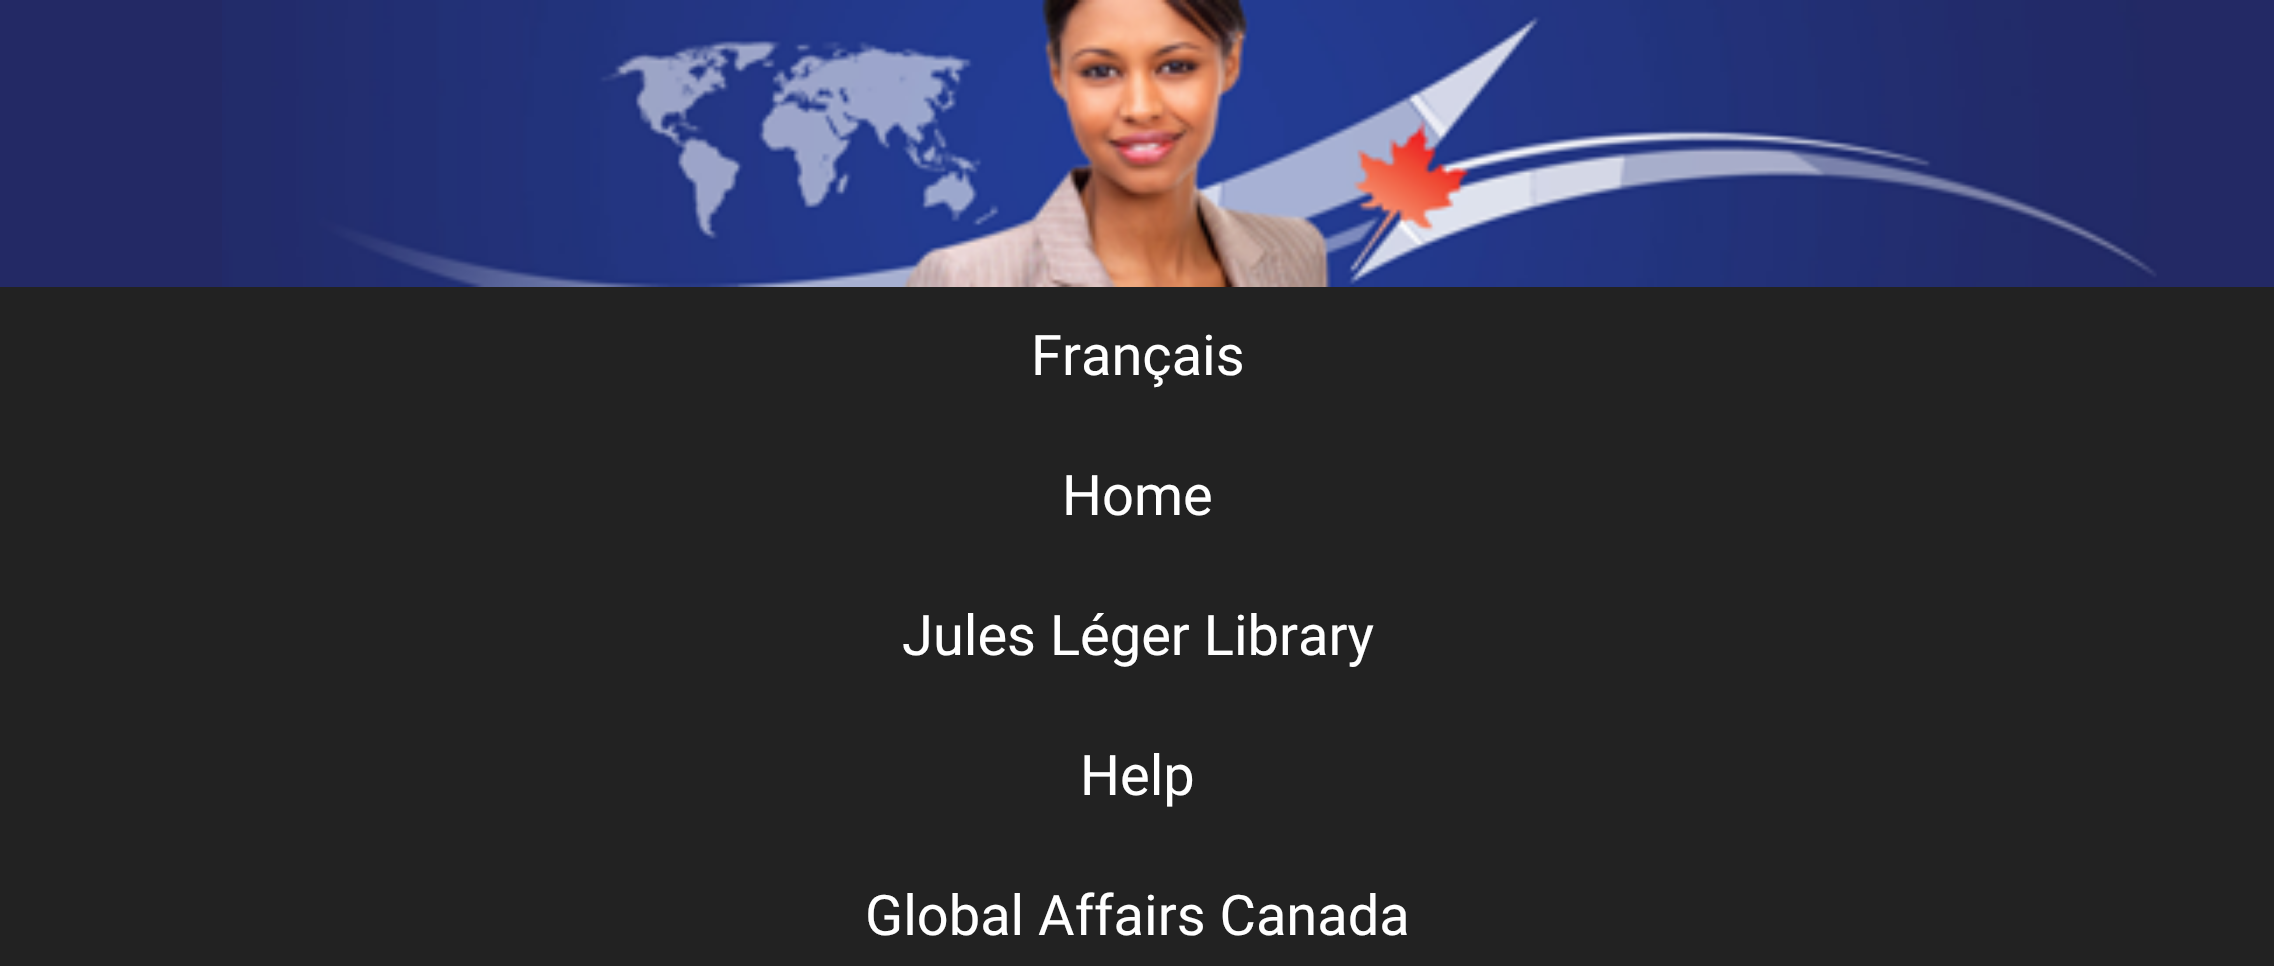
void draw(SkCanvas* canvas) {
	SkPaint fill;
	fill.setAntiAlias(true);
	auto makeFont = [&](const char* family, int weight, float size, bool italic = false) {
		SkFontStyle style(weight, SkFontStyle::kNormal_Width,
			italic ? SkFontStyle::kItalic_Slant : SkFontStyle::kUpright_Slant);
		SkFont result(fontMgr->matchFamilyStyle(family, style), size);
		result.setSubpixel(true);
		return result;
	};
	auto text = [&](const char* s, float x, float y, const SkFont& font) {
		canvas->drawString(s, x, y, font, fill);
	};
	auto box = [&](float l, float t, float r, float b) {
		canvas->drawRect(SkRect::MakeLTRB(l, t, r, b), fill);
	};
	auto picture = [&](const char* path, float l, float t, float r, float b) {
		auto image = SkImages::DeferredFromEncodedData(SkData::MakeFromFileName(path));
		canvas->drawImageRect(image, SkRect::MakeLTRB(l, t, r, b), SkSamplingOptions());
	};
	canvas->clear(0xFF232965);
	picture("image0.png", 222, 0, 2157, 287);
	fill.setColor(0xFF222222);
	box(0, 287, 2274, 966);
	auto font1 = makeFont("Roboto", 400, 56);
	fill.setColor(0xFFFFFFFF);
	text("Français", 1031, 375, font1);
	text("Home", 1062, 515, font1);
	text("Jules Léger Library", 902, 655, font1);
	text("Help", 1080, 795, font1);
	text("Global Affairs Canada", 865, 935, font1);
}
